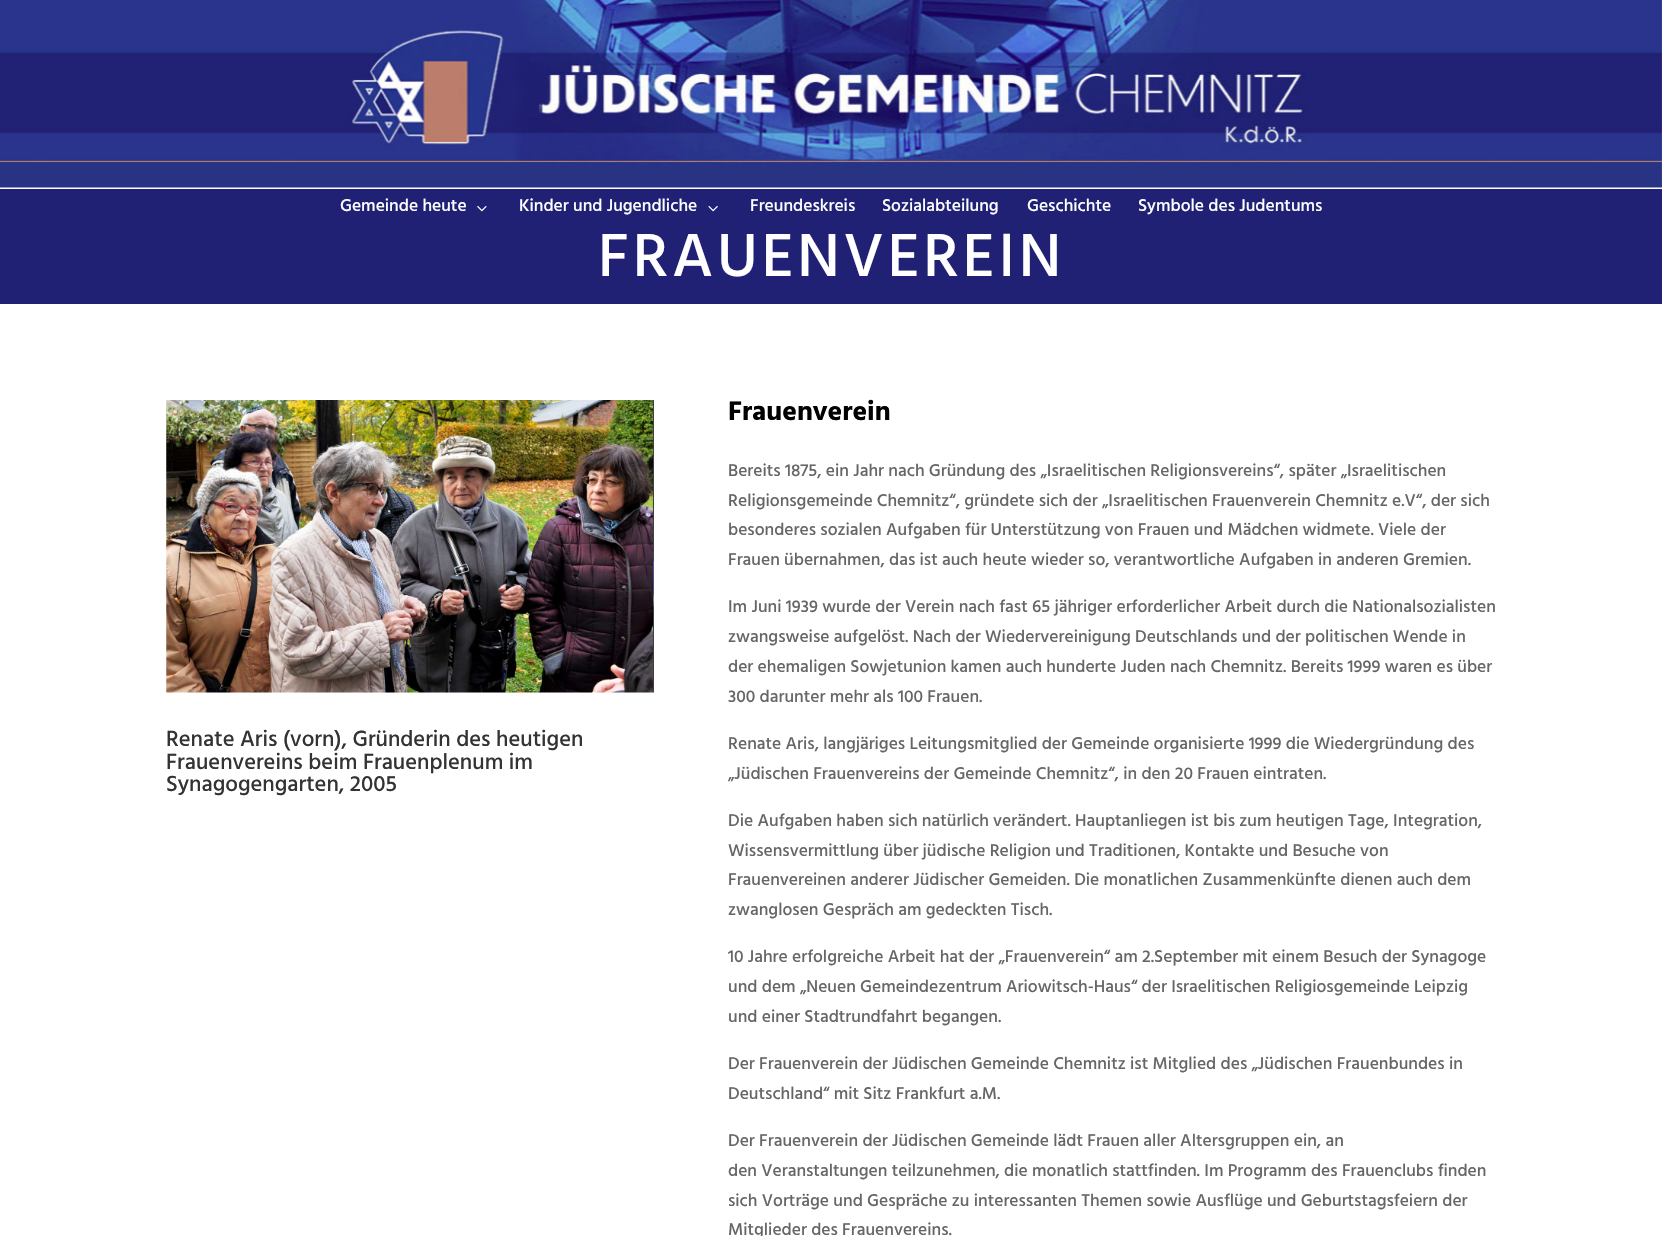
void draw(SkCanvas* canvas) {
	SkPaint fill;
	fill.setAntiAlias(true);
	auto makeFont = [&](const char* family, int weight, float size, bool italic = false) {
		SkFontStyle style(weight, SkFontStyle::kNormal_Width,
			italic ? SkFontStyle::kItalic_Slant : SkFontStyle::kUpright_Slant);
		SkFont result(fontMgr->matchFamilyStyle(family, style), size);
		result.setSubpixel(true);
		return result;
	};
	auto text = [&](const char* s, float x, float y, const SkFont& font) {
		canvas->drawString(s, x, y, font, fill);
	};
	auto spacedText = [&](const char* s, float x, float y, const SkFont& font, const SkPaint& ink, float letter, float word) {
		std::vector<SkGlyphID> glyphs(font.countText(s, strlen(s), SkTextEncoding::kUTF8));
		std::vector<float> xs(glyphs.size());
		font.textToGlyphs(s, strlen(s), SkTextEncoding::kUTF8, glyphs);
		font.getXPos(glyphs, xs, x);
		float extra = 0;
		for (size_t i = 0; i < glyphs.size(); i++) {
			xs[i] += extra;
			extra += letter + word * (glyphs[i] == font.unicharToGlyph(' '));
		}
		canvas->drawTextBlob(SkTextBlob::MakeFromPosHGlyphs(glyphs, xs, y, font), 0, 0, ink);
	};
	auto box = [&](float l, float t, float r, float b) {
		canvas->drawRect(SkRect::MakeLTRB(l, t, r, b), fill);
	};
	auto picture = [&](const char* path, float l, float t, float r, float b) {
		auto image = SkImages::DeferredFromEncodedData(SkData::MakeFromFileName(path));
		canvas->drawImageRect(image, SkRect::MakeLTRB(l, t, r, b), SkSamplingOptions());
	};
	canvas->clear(0xFFFFFFFF);
	picture("image0.png", 0, 0, 1662, 188);
	fill.setColor(0xFF202174);
	box(0, 189, 1662, 304);
	picture("image1.png", 477, 206, 487, 212);
	picture("image2.png", 708, 206, 718, 212);
	picture("image3.png", 166, 400, 654, 693);
	auto font1 = makeFont("Hind", 500, 17.5f);
	fill.setColor(0xFFFFFFFF);
	text("Gemeinde heute", 340, 211, font1);
	text("Kinder und Jugendliche", 519, 211, font1);
	text("Freundeskreis", 750, 211, font1);
	text("Sozialabteilung", 882, 211, font1);
	text("Geschichte", 1027, 211, font1);
	text("Symbole des Judentums", 1138, 211, font1);
	auto font2 = makeFont("Hind", 500, 62.5f);
	spacedText("FRAUENVEREIN", 598, 276, font2, fill, 3.75f, 0);
	auto font3 = makeFont("Hind", 500, 22.5f);
	fill.setColor(0xFF333333);
	text("Renate Aris (vorn), Gründerin des heutigen", 166, 746, font3);
	text("Frauenvereins beim Frauenplenum im", 166, 769, font3);
	text("Synagogengarten, 2005", 166, 791, font3);
	auto font4 = makeFont("Hind", 700, 27.5f);
	fill.setColor(0xFF000000);
	text("Frauenverein", 728, 420, font4);
	fill.setColor(0xFF666666);
	text("Bereits 1875, ein Jahr nach Gründung des „Israelitischen Religionsvereins“, später „Israelitischen", 728, 476, font1);
	text("Religionsgemeinde Chemnitz“, gründete sich der „Israelitischen Frauenverein Chemnitz e.V“, der sich", 728, 506, font1);
	text("besonderes sozialen Aufgaben für Unterstützung von Frauen und Mädchen widmete. Viele der", 728, 535, font1);
	text("Frauen übernahmen, das ist auch heute wieder so, verantwortliche Aufgaben in anderen Gremien.", 728, 565, font1);
	text("Im Juni 1939 wurde der Verein nach fast 65 jähriger erforderlicher Arbeit durch die Nationalsozialisten", 728, 612, font1);
	text("zwangsweise aufgelöst. Nach der Wiedervereinigung Deutschlands und der politischen Wende in", 728, 642, font1);
	text("der ehemaligen Sowjetunion kamen auch hunderte Juden nach Chemnitz. Bereits 1999 waren es über", 728, 672, font1);
	text("300 darunter mehr als 100 Frauen.", 728, 702, font1);
	text("Renate Aris, langjäriges Leitungsmitglied der Gemeinde organisierte 1999 die Wiedergründung des", 728, 749, font1);
	text("„Jüdischen Frauenvereins der Gemeinde Chemnitz“, in den 20 Frauen eintraten.", 728, 779, font1);
	text("Die Aufgaben haben sich natürlich verändert. Hauptanliegen ist bis zum heutigen Tage, Integration,", 728, 826, font1);
	text("Wissensvermittlung über jüdische Religion und Traditionen, Kontakte und Besuche von", 728, 856, font1);
	text("Frauenvereinen anderer Jüdischer Gemeiden. Die monatlichen Zusammenkünfte dienen auch dem", 728, 885, font1);
	text("zwanglosen Gespräch am gedeckten Tisch.", 728, 915, font1);
	text("10 Jahre erfolgreiche Arbeit hat der „Frauenverein“ am 2.September mit einem Besuch der Synagoge", 728, 962, font1);
	text("und dem „Neuen Gemeindezentrum Ariowitsch-Haus“ der Israelitischen Religiosgemeinde Leipzig", 728, 992, font1);
	text("und einer Stadtrundfahrt begangen.", 728, 1022, font1);
	text("Der Frauenverein der Jüdischen Gemeinde Chemnitz ist Mitglied des „Jüdischen Frauenbundes in", 728, 1069, font1);
	text("Deutschland“ mit Sitz Frankfurt a.M.", 728, 1099, font1);
	text("Der Frauenverein der Jüdischen Gemeinde lädt Frauen aller Altersgruppen ein, an", 728, 1146, font1);
	text("den Veranstaltungen teilzunehmen, die monatlich stattfinden. Im Programm des Frauenclubs finden", 728, 1176, font1);
	text("sich Vorträge und Gespräche zu interessanten Themen sowie Ausflüge und Geburtstagsfeiern der", 728, 1206, font1);
	text("Mitglieder des Frauenvereins.", 728, 1235, font1);
}
